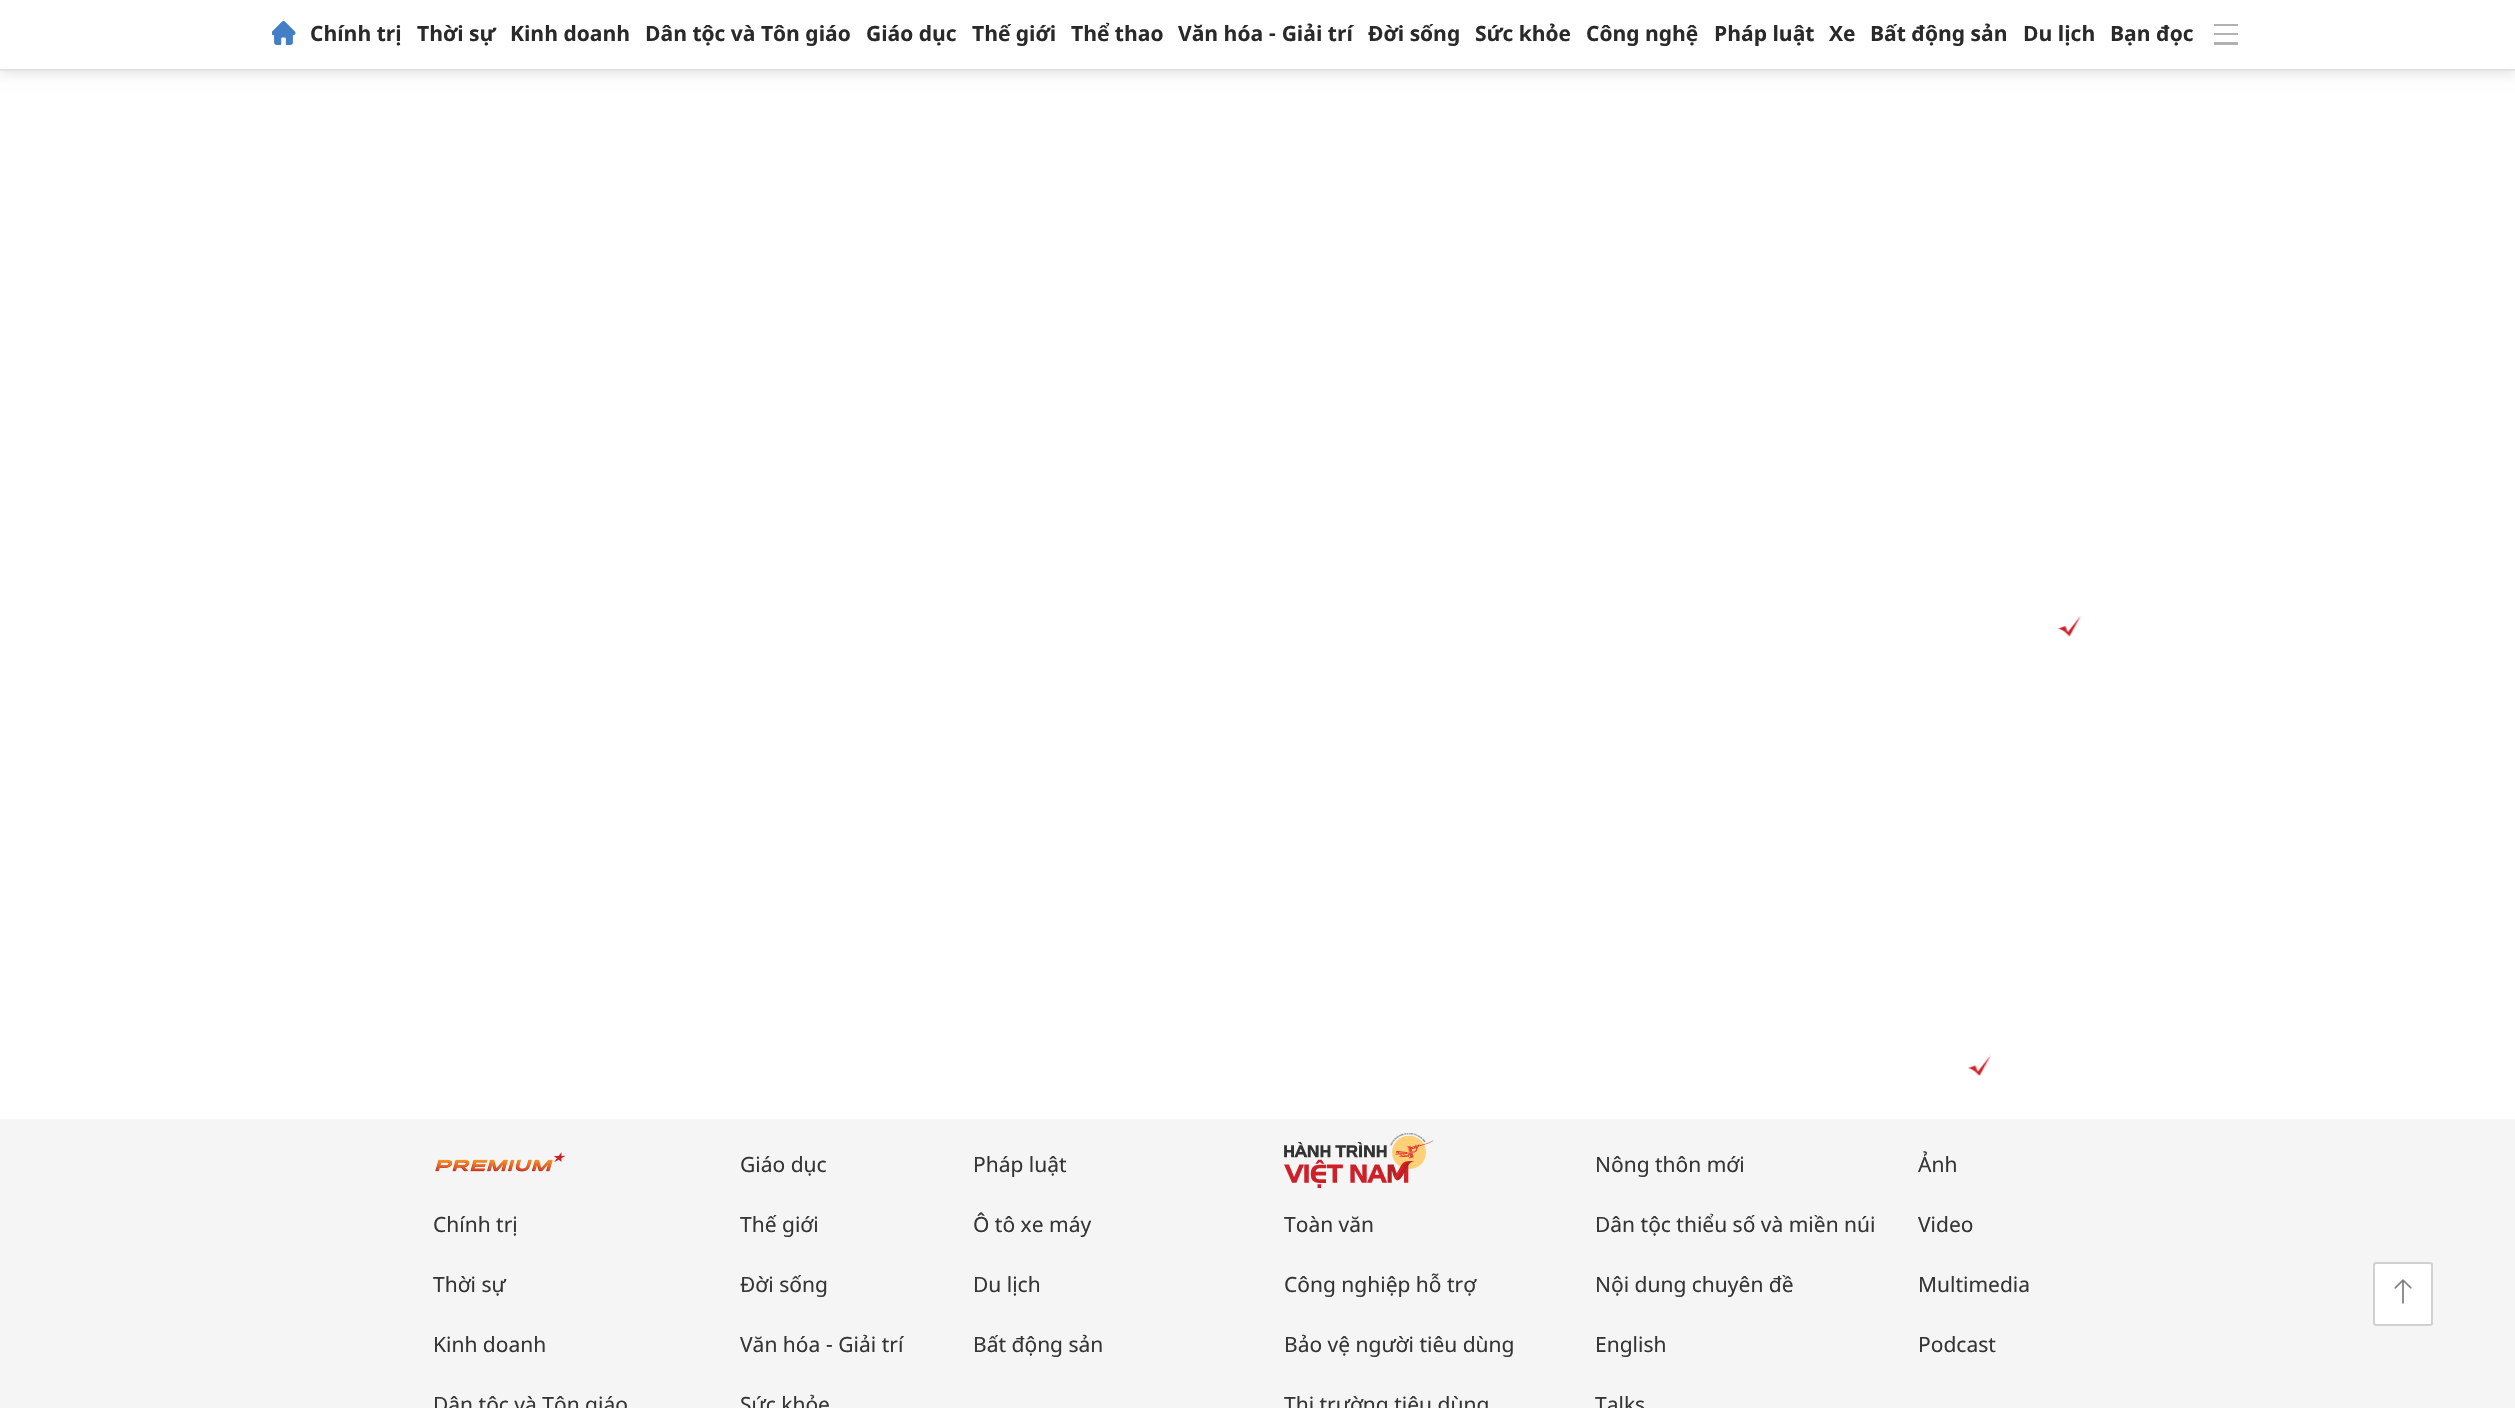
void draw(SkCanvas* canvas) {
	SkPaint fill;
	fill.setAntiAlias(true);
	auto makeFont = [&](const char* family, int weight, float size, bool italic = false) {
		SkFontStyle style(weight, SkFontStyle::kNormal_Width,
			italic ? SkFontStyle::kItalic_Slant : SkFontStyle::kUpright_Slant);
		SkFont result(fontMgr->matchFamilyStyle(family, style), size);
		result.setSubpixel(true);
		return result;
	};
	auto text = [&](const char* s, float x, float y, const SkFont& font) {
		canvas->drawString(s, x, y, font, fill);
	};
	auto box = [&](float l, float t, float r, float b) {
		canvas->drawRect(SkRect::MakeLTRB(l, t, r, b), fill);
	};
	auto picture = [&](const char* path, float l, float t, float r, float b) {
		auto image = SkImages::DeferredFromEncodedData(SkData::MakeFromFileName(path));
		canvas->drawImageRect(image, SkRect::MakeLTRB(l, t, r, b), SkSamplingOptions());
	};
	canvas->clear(0xFFFFFFFF);
	fill.setColor(0x1A000000);
	fill.setMaskFilter(SkMaskFilter::MakeBlur(kNormal_SkBlurStyle, 6));
	canvas->drawRect(SkRect::MakeLTRB(0, 2, 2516, 74), fill);
	fill.setMaskFilter(nullptr);
	fill.setColor(0xFFFFFFFF);
	box(0, 0, 2515, 69);
	fill.setColor(0xFFE2E2E2);
	box(0, 69, 2515, 71);
	picture("image0.png", 272, 21, 296, 45);
	fill.setColor(0xFFB1B1B1);
	box(2214, 24, 2238, 26);
	box(2214, 33, 2238, 35);
	box(2214, 42, 2238, 45);
	picture("image1.png", 2058, 615, 2081, 637);
	picture("image2.png", 1968, 1055, 1991, 1076);
	fill.setColor(0xFFF5F5F5);
	box(0, 1119, 2515, 1408);
	picture("image3.png", 435, 1152, 566, 1172);
	picture("image4.png", 1284, 1133, 1434, 1188);
	fill.setColor(0xFFFFFFFF);
	canvas->drawRoundRect(SkRect::MakeLTRB(2374, 1263, 2432, 1325), 2, 2, fill);
	fill.setStyle(SkPaint::kStroke_Style);
	fill.setStrokeWidth(2);
	fill.setColor(0xFFD1D1D1);
	canvas->drawRoundRect(SkRect::MakeLTRB(2374, 1263, 2432, 1325), 2, 2, fill);
	picture("image5.png", 2394, 1279, 2412, 1304);
	auto font1 = makeFont("Noto Sans", 700, 21);
	fill.setStyle(SkPaint::kFill_Style);
	fill.setColor(0xFF2A2A2A);
	text("Chính trị", 310, 41, font1);
	text("Thời sự", 417, 41, font1);
	text("Kinh doanh", 510, 41, font1);
	text("Dân tộc và Tôn giáo", 645, 41, font1);
	text("Giáo dục", 866, 41, font1);
	text("Thế giới", 972, 41, font1);
	text("Thể thao", 1071, 41, font1);
	text("Văn hóa - Giải trí", 1178, 41, font1);
	text("Đời sống", 1368, 41, font1);
	text("Sức khỏe", 1475, 41, font1);
	text("Công nghệ", 1586, 41, font1);
	text("Pháp luật", 1714, 41, font1);
	text("Xe", 1829, 41, font1);
	text("Bất động sản", 1870, 41, font1);
	text("Du lịch", 2023, 41, font1);
	text("Bạn đọc", 2110, 41, font1);
	auto font2 = makeFont("Noto Sans", 400, 21);
	fill.setColor(0xFF353535);
	text("Giáo dục", 740, 1172, font2);
	text("Pháp luật", 973, 1172, font2);
	text("Nông thôn mới", 1595, 1172, font2);
	text("Ảnh", 1918, 1172, font2);
	text("Chính trị", 433, 1232, font2);
	text("Thế giới", 740, 1232, font2);
	text("Ô tô xe máy", 973, 1232, font2);
	text("Toàn văn", 1284, 1232, font2);
	text("Dân tộc thiểu số và miền núi", 1595, 1232, font2);
	text("Video", 1918, 1232, font2);
	text("Thời sự", 433, 1292, font2);
	text("Đời sống", 740, 1292, font2);
	text("Du lịch", 973, 1292, font2);
	text("Công nghiệp hỗ trợ", 1284, 1292, font2);
	text("Nội dung chuyên đề", 1595, 1292, font2);
	text("Multimedia", 1918, 1292, font2);
	text("Kinh doanh", 433, 1352, font2);
	text("Văn hóa - Giải trí", 740, 1352, font2);
	text("Bất động sản", 973, 1352, font2);
	text("Bảo vệ người tiêu dùng", 1284, 1352, font2);
	text("English", 1595, 1352, font2);
	text("Podcast", 1918, 1352, font2);
	text("Dân tộc và Tôn giáo", 433, 1412, font2);
	text("Sức khỏe", 740, 1412, font2);
	text("Thị trường tiêu dùng", 1284, 1412, font2);
	text("Talks", 1595, 1412, font2);
}
